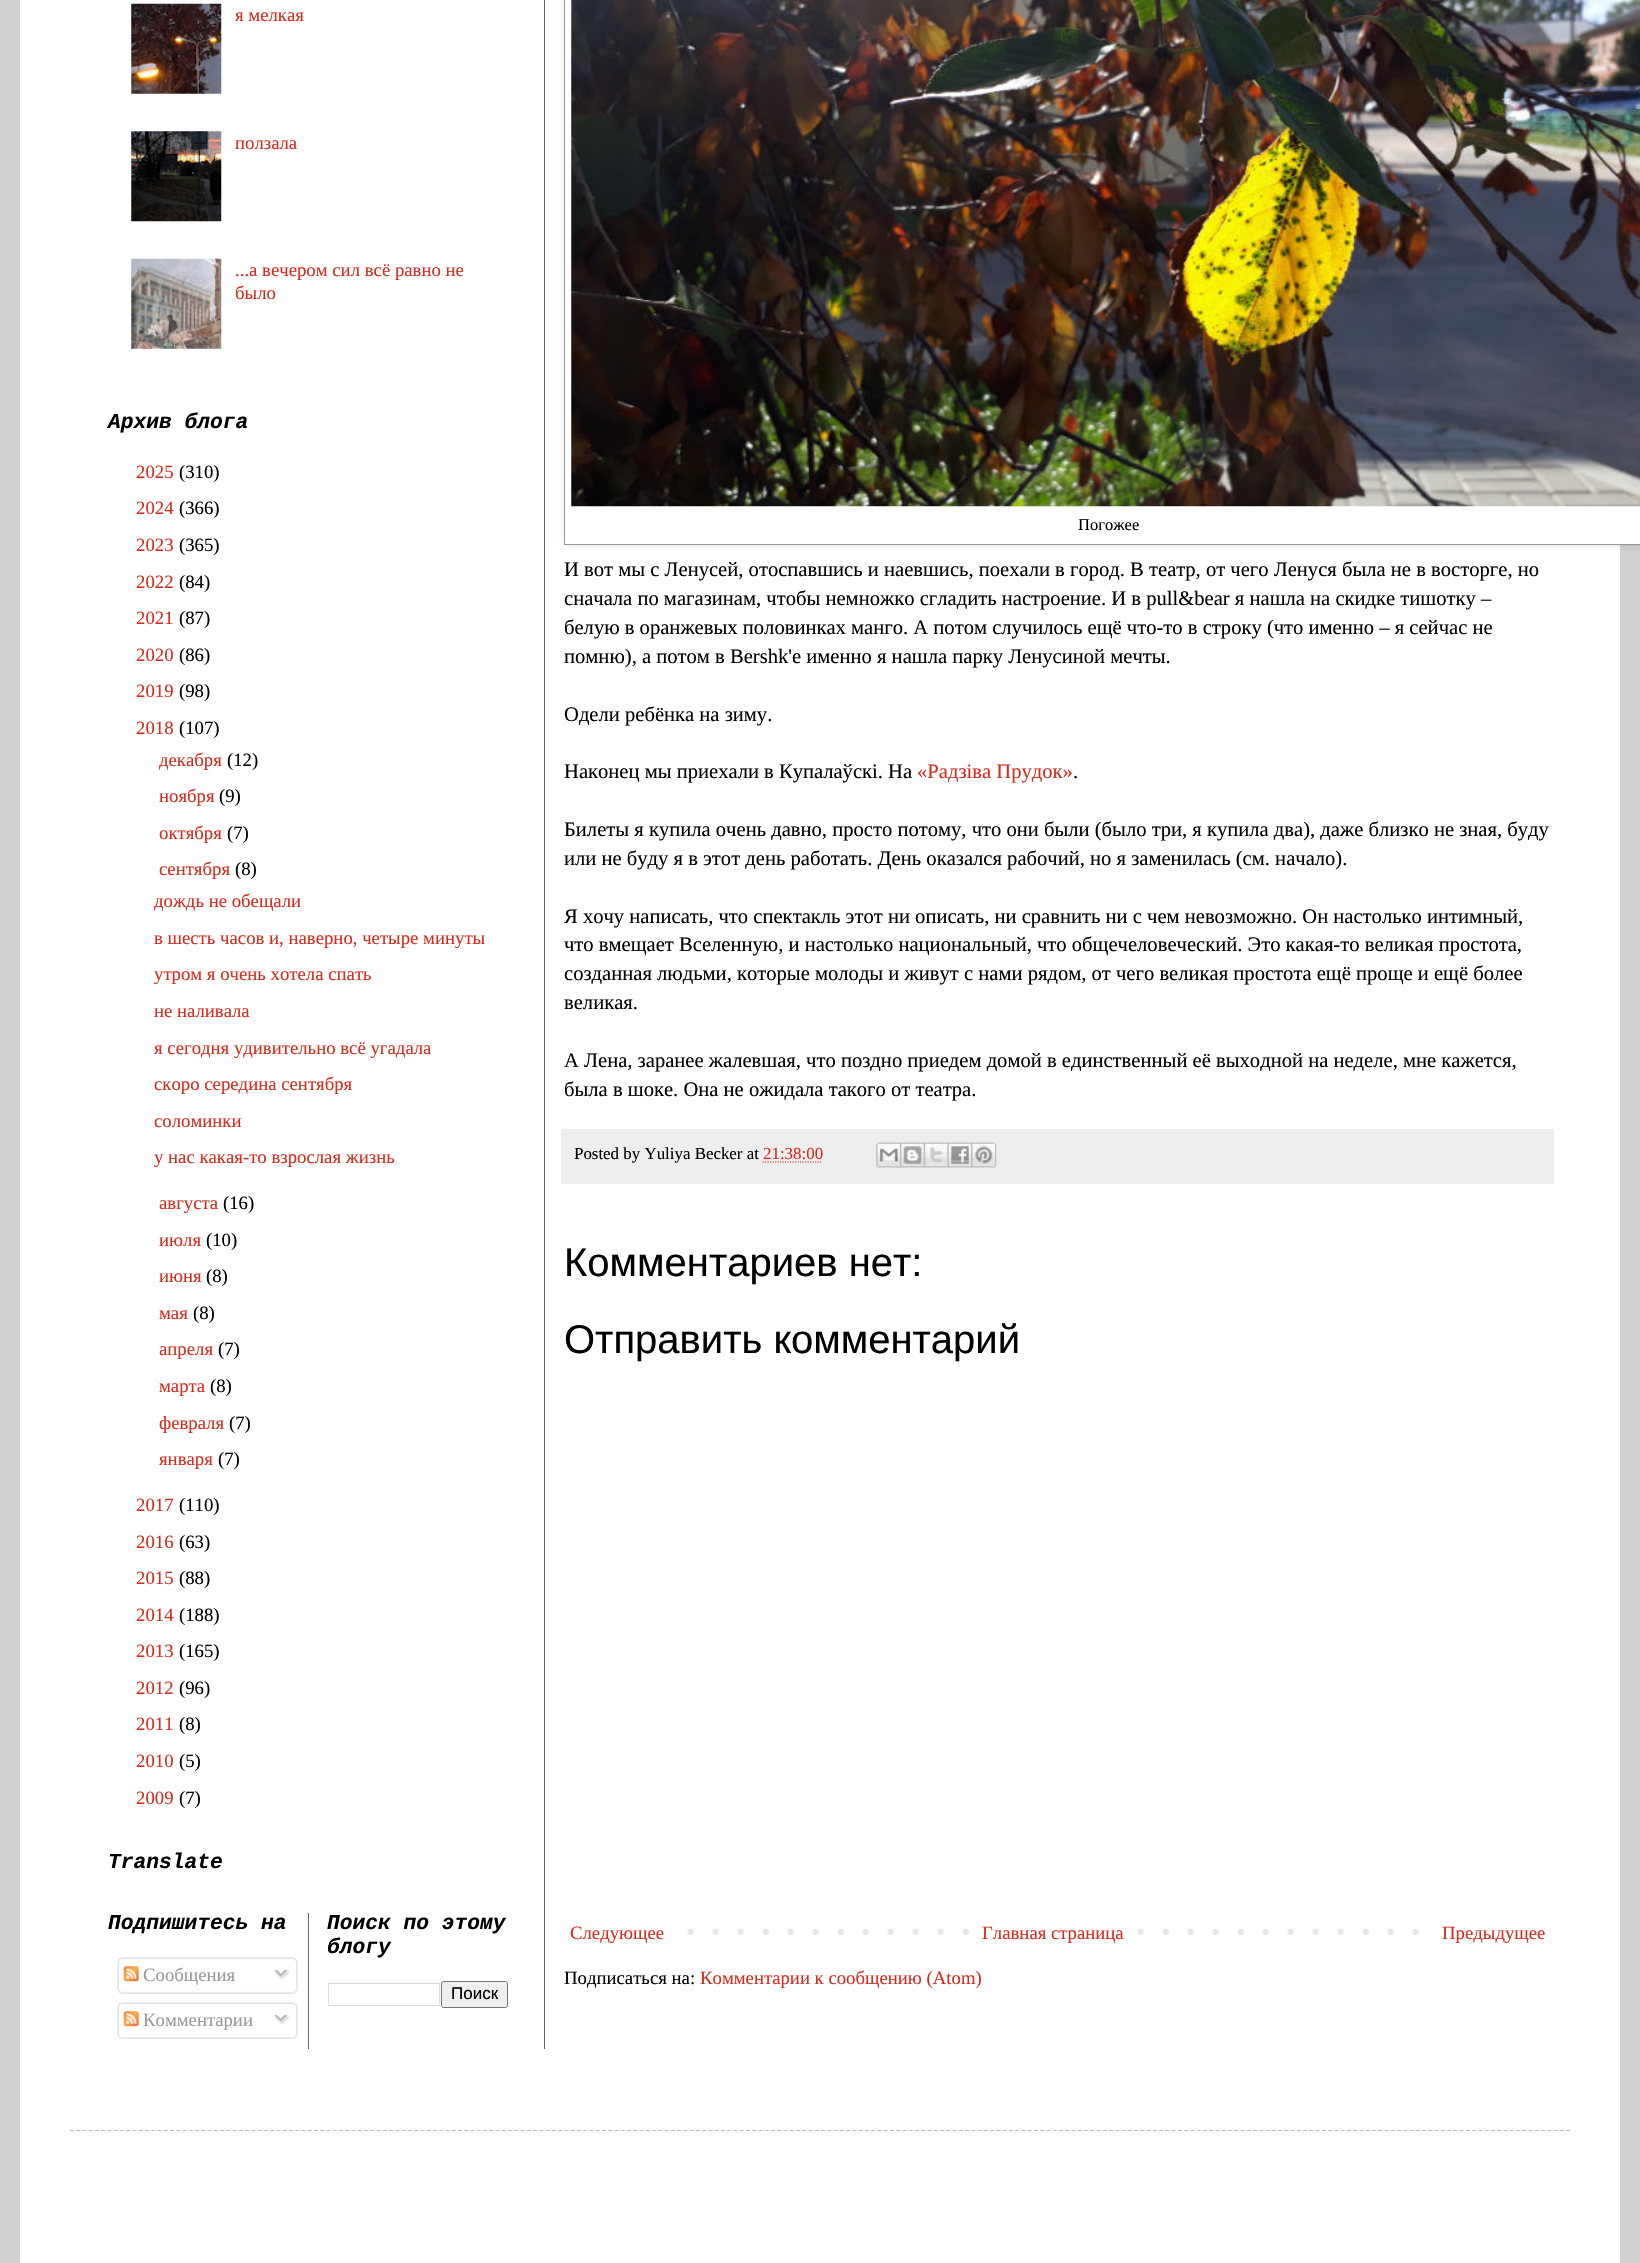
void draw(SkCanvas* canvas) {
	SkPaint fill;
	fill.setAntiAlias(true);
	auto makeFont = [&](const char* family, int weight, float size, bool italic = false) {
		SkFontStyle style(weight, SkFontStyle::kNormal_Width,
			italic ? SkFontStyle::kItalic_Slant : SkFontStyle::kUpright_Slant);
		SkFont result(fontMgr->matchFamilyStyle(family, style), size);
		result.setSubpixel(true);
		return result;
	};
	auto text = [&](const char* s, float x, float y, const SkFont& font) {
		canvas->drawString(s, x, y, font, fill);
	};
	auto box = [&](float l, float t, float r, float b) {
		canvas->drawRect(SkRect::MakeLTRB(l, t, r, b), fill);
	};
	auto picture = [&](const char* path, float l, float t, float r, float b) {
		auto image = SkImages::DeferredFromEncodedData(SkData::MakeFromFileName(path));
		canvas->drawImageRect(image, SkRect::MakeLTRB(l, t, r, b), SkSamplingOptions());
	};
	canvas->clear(0xFFD1D1D1);
	fill.setColor(0xFFFFFFFF);
	box(20, 0, 1620, 2263);
	fill.setColor(0xFF666666);
	box(544, 0, 545, 2049);
	picture("image0.png", 131, 3, 222, 94);
	picture("image1.png", 131, 131, 222, 222);
	picture("image2.png", 131, 258, 222, 349);
	picture("image3.png", 117, 1957, 298, 1990);
	picture("image4.png", 123, 1966, 139, 1982);
	picture("image5.png", 274, 1969, 290, 1980);
	picture("image6.png", 117, 1990, 298, 1994);
	picture("image3.png", 117, 2002, 298, 2035);
	picture("image4.png", 123, 2011, 139, 2027);
	picture("image5.png", 274, 2014, 290, 2025);
	picture("image6.png", 117, 2035, 298, 2039);
	box(308, 1913, 309, 2049);
	fill.setStyle(SkPaint::kStroke_Style);
	fill.setStrokeWidth(1);
	fill.setColor(0xFFDDDDDD);
	canvas->drawRect(SkRect::MakeLTRB(328.5f, 1983.5f, 439.5f, 2005.5f), fill);
	fill.setStyle(SkPaint::kFill_Style);
	fill.setColor(0xFFEFEFEF);
	canvas->drawRoundRect(SkRect::MakeLTRB(441.5f, 1981.5f, 507.5f, 2007.5f), 2, 2, fill);
	fill.setStyle(SkPaint::kStroke_Style);
	fill.setColor(0xFF767676);
	canvas->drawRoundRect(SkRect::MakeLTRB(441.5f, 1981.5f, 507.5f, 2007.5f), 2, 2, fill);
	fill.setStyle(SkPaint::kFill_Style);
	fill.setColor(0x1A000000);
	fill.setMaskFilter(SkMaskFilter::MakeBlur(kNormal_SkBlurStyle, 3));
	canvas->drawRect(SkRect::MakeLTRB(565, -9, 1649, 546), fill);
	fill.setMaskFilter(nullptr);
	fill.setColor(0xFFFFFFFF);
	canvas->drawRect(SkRect::MakeLTRB(564.5f, -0.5f, 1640.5f, 544.5f), fill);
	fill.setStyle(SkPaint::kStroke_Style);
	fill.setColor(0xFF999999);
	canvas->drawRect(SkRect::MakeLTRB(564.5f, -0.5f, 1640.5f, 544.5f), fill);
	picture("image7.png", 571, 0, 1640, 507);
	fill.setStyle(SkPaint::kFill_Style);
	fill.setColor(0xFFEEEEEE);
	box(561, 1129, 1554, 1184);
	fill.setStyle(SkPaint::kStroke_Style);
	fill.setStrokeWidth(1.2f);
	fill.setColor(0xFFD52C1F);
	fill.setPathEffect(SkDashPathEffect::Make({{1.25f, 1.25f}}, 0));
	canvas->drawPath(SkPathBuilder().moveTo(762.5f, 1162).lineTo(822.5f, 1162).detach(), fill);
	fill.setPathEffect(nullptr);
	picture("image8.png", 876, 1142, 902, 1168);
	picture("image9.png", 900, 1142, 925, 1168);
	picture("image10.png", 923, 1142, 949, 1168);
	picture("image11.png", 947, 1142, 973, 1168);
	picture("image12.png", 971, 1142, 997, 1168);
	picture("image13.png", 563, 1928, 1419, 1935);
	fill.setStyle(SkPaint::kFill_Style);
	fill.setColor(0xFFFFFFFF);
	box(564, 1928, 670, 1935);
	box(987, 1928, 1120, 1935);
	fill.setStyle(SkPaint::kStroke_Style);
	fill.setColor(0xFFBBBBBB);
	fill.setPathEffect(SkDashPathEffect::Make({{3.75f, 2.51f}}, 0));
	canvas->drawPath(SkPathBuilder().moveTo(70, 2130.5f).lineTo(1570, 2130.5f).detach(), fill);
	fill.setPathEffect(nullptr);
	auto font1 = makeFont("Liberation Serif", 400, 18.75f);
	fill.setStyle(SkPaint::kFill_Style);
	fill.setColor(0xFFD52C1F);
	text("я мелкая", 235, 21, font1);
	text("ползала", 235, 149, font1);
	text("...а вечером сил всё равно не", 235, 276, font1);
	text("было", 235, 299, font1);
	auto font2 = makeFont("Liberation Mono", 700, 21.25f, true);
	fill.setColor(0xFF000000);
	text("Архив блога", 108, 428, font2);
	fill.setColor(0xFFD52C1F);
	text("2025", 136, 478, font1);
	fill.setColor(0xFF000000);
	text("(310)", 179, 478, font1);
	fill.setColor(0xFFD52C1F);
	text("2024", 136, 514, font1);
	fill.setColor(0xFF000000);
	text("(366)", 179, 514, font1);
	fill.setColor(0xFFD52C1F);
	text("2023", 136, 551, font1);
	fill.setColor(0xFF000000);
	text("(365)", 179, 551, font1);
	fill.setColor(0xFFD52C1F);
	text("2022", 136, 588, font1);
	fill.setColor(0xFF000000);
	text("(84)", 179, 588, font1);
	fill.setColor(0xFFD52C1F);
	text("2021", 136, 624, font1);
	fill.setColor(0xFF000000);
	text("(87)", 179, 624, font1);
	fill.setColor(0xFFD52C1F);
	text("2020", 136, 661, font1);
	fill.setColor(0xFF000000);
	text("(86)", 179, 661, font1);
	fill.setColor(0xFFD52C1F);
	text("2019", 136, 697, font1);
	fill.setColor(0xFF000000);
	text("(98)", 179, 697, font1);
	fill.setColor(0xFFD52C1F);
	text("2018", 136, 734, font1);
	fill.setColor(0xFF000000);
	text("(107)", 179, 734, font1);
	fill.setColor(0xFFD52C1F);
	text("декабря", 159, 766, font1);
	fill.setColor(0xFF000000);
	text("(12)", 227, 766, font1);
	fill.setColor(0xFFD52C1F);
	text("ноября", 159, 802, font1);
	fill.setColor(0xFF000000);
	text("(9)", 219, 802, font1);
	fill.setColor(0xFFD52C1F);
	text("октября", 159, 839, font1);
	fill.setColor(0xFF000000);
	text("(7)", 227, 839, font1);
	fill.setColor(0xFFD52C1F);
	text("сентября", 159, 875, font1);
	fill.setColor(0xFF000000);
	text("(8)", 235, 875, font1);
	fill.setColor(0xFFD52C1F);
	text("дождь не обещали", 154, 907, font1);
	text("в шесть часов и, наверно, четыре минуты", 154, 944, font1);
	text("утром я очень хотела спать", 154, 980, font1);
	text("не наливала", 154, 1017, font1);
	text("я сегодня удивительно всё угадала", 154, 1054, font1);
	text("скоро середина сентября", 154, 1090, font1);
	text("соломинки", 154, 1127, font1);
	text("у нас какая-то взрослая жизнь", 154, 1163, font1);
	text("августа", 159, 1209, font1);
	fill.setColor(0xFF000000);
	text("(16)", 223, 1209, font1);
	fill.setColor(0xFFD52C1F);
	text("июля", 159, 1246, font1);
	fill.setColor(0xFF000000);
	text("(10)", 206, 1246, font1);
	fill.setColor(0xFFD52C1F);
	text("июня", 159, 1282, font1);
	fill.setColor(0xFF000000);
	text("(8)", 206, 1282, font1);
	fill.setColor(0xFFD52C1F);
	text("мая", 159, 1319, font1);
	fill.setColor(0xFF000000);
	text("(8)", 193, 1319, font1);
	fill.setColor(0xFFD52C1F);
	text("апреля", 159, 1355, font1);
	fill.setColor(0xFF000000);
	text("(7)", 218, 1355, font1);
	fill.setColor(0xFFD52C1F);
	text("марта", 159, 1392, font1);
	fill.setColor(0xFF000000);
	text("(8)", 210, 1392, font1);
	fill.setColor(0xFFD52C1F);
	text("февраля", 159, 1429, font1);
	fill.setColor(0xFF000000);
	text("(7)", 229, 1429, font1);
	fill.setColor(0xFFD52C1F);
	text("января", 159, 1465, font1);
	fill.setColor(0xFF000000);
	text("(7)", 218, 1465, font1);
	fill.setColor(0xFFD52C1F);
	text("2017", 136, 1511, font1);
	fill.setColor(0xFF000000);
	text("(110)", 179, 1511, font1);
	fill.setColor(0xFFD52C1F);
	text("2016", 136, 1548, font1);
	fill.setColor(0xFF000000);
	text("(63)", 179, 1548, font1);
	fill.setColor(0xFFD52C1F);
	text("2015", 136, 1584, font1);
	fill.setColor(0xFF000000);
	text("(88)", 179, 1584, font1);
	fill.setColor(0xFFD52C1F);
	text("2014", 136, 1621, font1);
	fill.setColor(0xFF000000);
	text("(188)", 179, 1621, font1);
	fill.setColor(0xFFD52C1F);
	text("2013", 136, 1657, font1);
	fill.setColor(0xFF000000);
	text("(165)", 179, 1657, font1);
	fill.setColor(0xFFD52C1F);
	text("2012", 136, 1694, font1);
	fill.setColor(0xFF000000);
	text("(96)", 179, 1694, font1);
	fill.setColor(0xFFD52C1F);
	text("2011", 136, 1730, font1);
	fill.setColor(0xFF000000);
	text("(8)", 179, 1730, font1);
	fill.setColor(0xFFD52C1F);
	text("2010", 136, 1767, font1);
	fill.setColor(0xFF000000);
	text("(5)", 179, 1767, font1);
	fill.setColor(0xFFD52C1F);
	text("2009", 136, 1804, font1);
	fill.setColor(0xFF000000);
	text("(7)", 179, 1804, font1);
	text("Translate", 108, 1868, font2);
	text("Подпишитесь на", 108, 1929, font2);
	fill.setColor(0xFF999999);
	text("Сообщения", 143, 1981, font1);
	text("Комментарии", 143, 2026, font1);
	fill.setColor(0xFF000000);
	text("Поиск по этому", 327, 1929, font2);
	text("блогу", 327, 1953, font2);
	auto font3 = makeFont("Liberation Sans", 400, 17);
	text("Поиск", 451, 1999, font3);
	auto font4 = makeFont("Liberation Serif", 400, 16.5f);
	text("Погожее", 1078, 530, font4);
	auto font5 = makeFont("Liberation Serif", 400, 20.6f);
	text("И вот мы с Ленусей, отоспавшись и наевшись, поехали в город. В театр, от чего Ленуся была не в восторге, но", 564, 576, font5);
	text("сначала по магазинам, чтобы немножко сгладить настроение. И в pull&bear я нашла на скидке тишотку –", 564, 605, font5);
	text("белую в оранжевых половинках манго. А потом случилось ещё что-то в строку (что именно – я сейчас не", 564, 634, font5);
	text("помню), а потом в Bershk'е именно я нашла парку Ленусиной мечты.", 564, 663, font5);
	text("Одели ребёнка на зиму.", 564, 721, font5);
	text("Наконец мы приехали в Купалаўскi. На", 564, 778, font5);
	fill.setColor(0xFFD52C1F);
	text("«Радзiва Прудок»", 917, 778, font5);
	fill.setColor(0xFF000000);
	text(".", 1073, 778, font5);
	text("Билеты я купила очень давно, просто потому, что они были (было три, я купила два), даже близко не зная, буду", 564, 836, font5);
	text("или не буду я в этот день работать. День оказался рабочий, но я заменилась (см. начало).", 564, 865, font5);
	text("Я хочу написать, что спектакль этот ни описать, ни сравнить ни с чем невозможно. Он настолько интимный,", 564, 923, font5);
	text("что вмещает Вселенную, и настолько национальный, что общечеловеческий. Это какая-то великая простота,", 564, 951, font5);
	text("созданная людьми, которые молоды и живут с нами рядом, от чего великая простота ещё проще и ещё более", 564, 980, font5);
	text("великая.", 564, 1009, font5);
	text("А Лена, заранее жалевшая, что поздно приедем домой в единственный её выходной на неделе, мне кажется,", 564, 1067, font5);
	text("была в шоке. Она не ожидала такого от театра.", 564, 1096, font5);
	auto font6 = makeFont("Liberation Serif", 400, 16.9f);
	text("Posted by Yuliya Becker at", 574, 1159, font6);
	fill.setColor(0xFFD52C1F);
	text("21:38:00", 763, 1159, font6);
	auto font7 = makeFont("Liberation Sans", 400, 40);
	fill.setColor(0xFF000000);
	text("Комментариев нет:", 564, 1276, font7);
	text("Отправить комментарий", 564, 1353, font7);
	fill.setColor(0xFFD52C1F);
	text("Следующее", 570, 1939, font1);
	text("Главная страница", 982, 1939, font1);
	text("Предыдущее", 1442, 1939, font1);
	fill.setColor(0xFF000000);
	text("Подписаться на:", 564, 1984, font1);
	fill.setColor(0xFFD52C1F);
	text("Комментарии к сообщению (Atom)", 700, 1984, font1);
}
